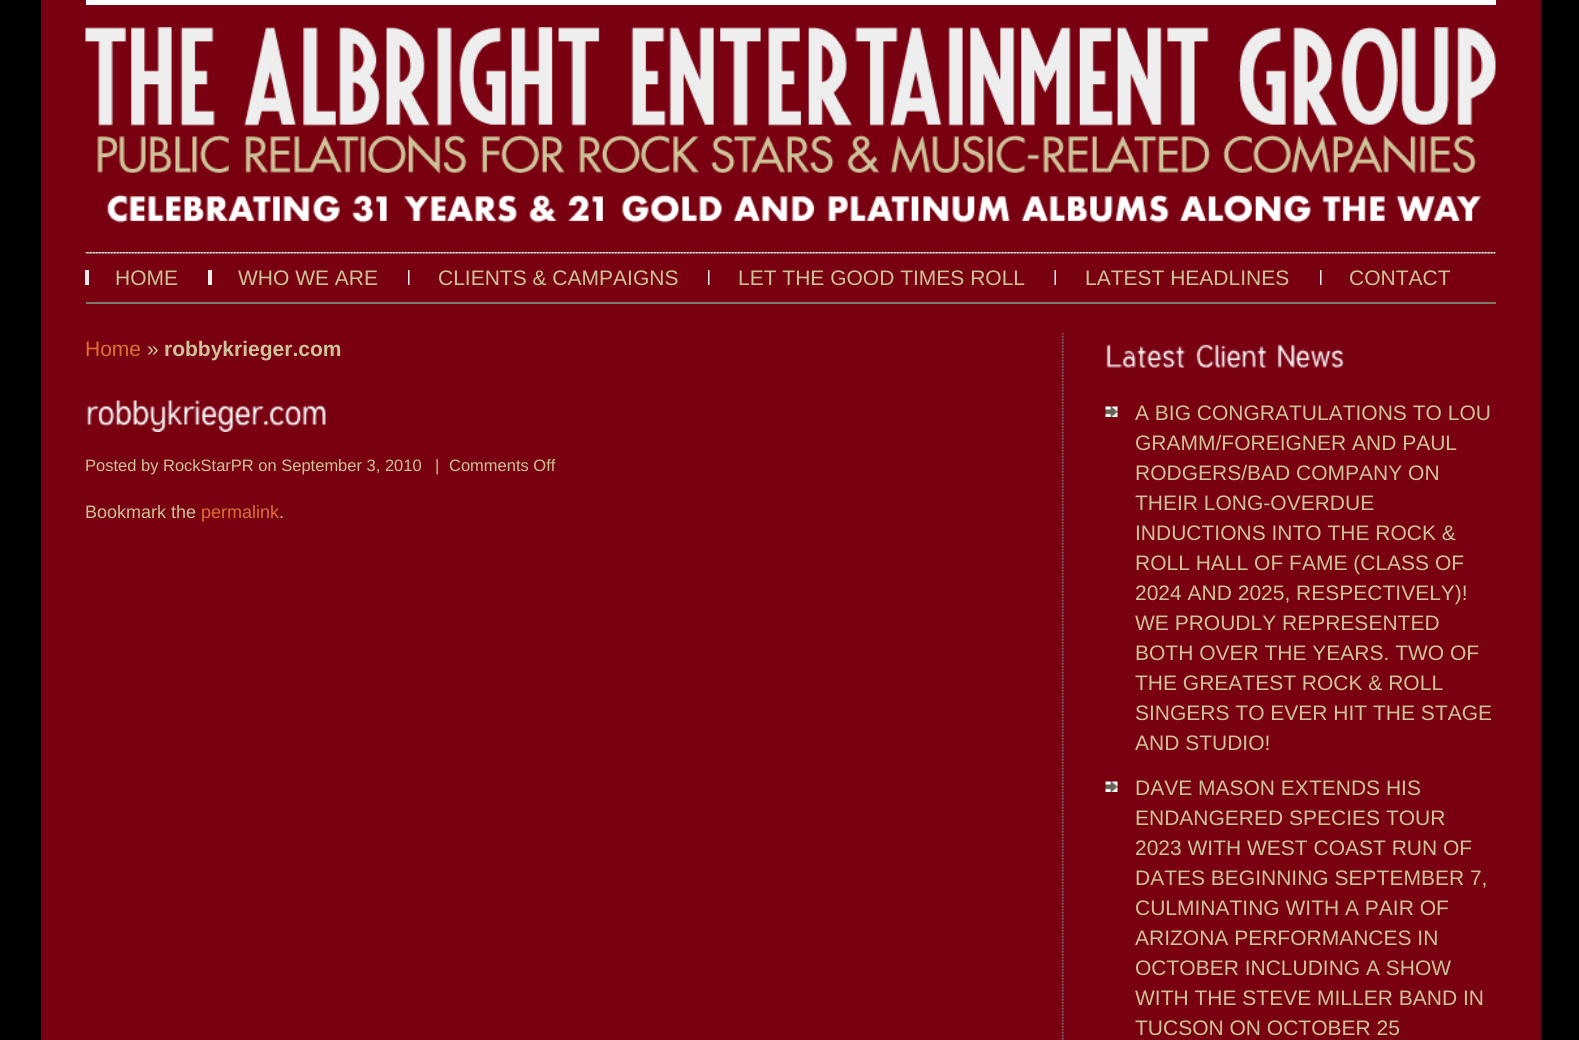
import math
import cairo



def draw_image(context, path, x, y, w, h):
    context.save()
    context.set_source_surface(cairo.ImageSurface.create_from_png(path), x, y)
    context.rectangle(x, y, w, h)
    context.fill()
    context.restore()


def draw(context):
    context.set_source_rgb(0, 0, 0)
    context.paint()
    context.set_source_rgb(120 / 255, 0, 16 / 255)
    context.rectangle(41, 0, 1500, 1040)
    context.fill()
    context.set_source_rgb(1, 1, 1)
    context.rectangle(86, 0, 1410, 5)
    context.fill()
    draw_image(context, "images/1.png", 85, 27, 1411, 196)
    draw_image(context, "images/2.png", 85, 252, 1411, 2)
    context.set_source_rgb(124 / 255, 122 / 255, 107 / 255)
    context.rectangle(86, 302, 1410, 2)
    context.fill()
    context.set_source_rgb(235 / 255, 236 / 255, 235 / 255)
    context.rectangle(85, 270, 4, 15)
    context.fill()
    context.rectangle(208, 270, 4, 15)
    context.fill()
    draw_image(context, "images/3.png", 408, 270, 2, 15)
    draw_image(context, "images/3.png", 708, 270, 2, 15)
    draw_image(context, "images/4.png", 1054, 270, 2, 15)
    draw_image(context, "images/3.png", 1320, 270, 2, 15)
    draw_image(context, "images/5.png", 1061, 333, 3, 707)
    draw_image(context, "images/6.png", 86, 400, 240, 32)
    draw_image(context, "images/7.png", 1106, 344, 80, 24)
    draw_image(context, "images/8.png", 1196, 344, 71, 24)
    draw_image(context, "images/9.png", 1277, 344, 68, 24)
    draw_image(context, "images/10.png", 1105, 406, 13, 11)
    draw_image(context, "images/10.png", 1105, 781, 13, 11)
    context.select_font_face("Liberation Sans")
    context.set_font_size(21)
    context.set_source_rgb(206 / 255, 195 / 255, 152 / 255)
    context.move_to(115, 285)
    context.show_text("HOME")
    context.move_to(238, 285)
    context.show_text("WHO WE ARE")
    context.move_to(438, 285)
    context.show_text("CLIENTS & CAMPAIGNS")
    context.move_to(738, 285)
    context.show_text("LET THE GOOD TIMES ROLL")
    context.move_to(1085, 285)
    context.show_text("LATEST HEADLINES")
    context.move_to(1349, 285)
    context.show_text("CONTACT")
    context.set_source_rgb(223 / 255, 112 / 255, 52 / 255)
    context.move_to(85, 356)
    context.show_text("Home")
    context.set_source_rgb(206 / 255, 195 / 255, 152 / 255)
    context.move_to(147, 356)
    context.show_text("»")
    context.select_font_face("Liberation Sans", cairo.FontSlant.NORMAL, cairo.FontWeight.BOLD)
    context.move_to(164, 356)
    context.show_text("robbykrieger.com")
    context.select_font_face("Liberation Sans")
    context.set_font_size(16.5)
    context.move_to(85, 471)
    context.show_text("Posted by RockStarPR on September 3, 2010")
    context.move_to(435, 471)
    context.show_text("|")
    context.move_to(449, 471)
    context.show_text("Comments Off")
    context.set_font_size(18)
    context.move_to(85, 518)
    context.show_text("Bookmark the")
    context.set_source_rgb(223 / 255, 112 / 255, 52 / 255)
    context.move_to(201, 518)
    context.show_text("permalink")
    context.set_source_rgb(206 / 255, 195 / 255, 152 / 255)
    context.move_to(279, 518)
    context.show_text(".")
    context.set_font_size(21)
    context.move_to(1135, 420)
    context.show_text("A BIG CONGRATULATIONS TO LOU")
    context.move_to(1135, 450)
    context.show_text("GRAMM/FOREIGNER AND PAUL")
    context.move_to(1135, 480)
    context.show_text("RODGERS/BAD COMPANY ON")
    context.move_to(1135, 510)
    context.show_text("THEIR LONG-OVERDUE")
    context.move_to(1135, 540)
    context.show_text("INDUCTIONS INTO THE ROCK &")
    context.move_to(1135, 570)
    context.show_text("ROLL HALL OF FAME (CLASS OF")
    context.move_to(1135, 600)
    context.show_text("2024 AND 2025, RESPECTIVELY)!")
    context.move_to(1135, 630)
    context.show_text("WE PROUDLY REPRESENTED")
    context.move_to(1135, 660)
    context.show_text("BOTH OVER THE YEARS. TWO OF")
    context.move_to(1135, 690)
    context.show_text("THE GREATEST ROCK & ROLL")
    context.move_to(1135, 720)
    context.show_text("SINGERS TO EVER HIT THE STAGE")
    context.move_to(1135, 750)
    context.show_text("AND STUDIO!")
    context.move_to(1135, 795)
    context.show_text("DAVE MASON EXTENDS HIS")
    context.move_to(1135, 825)
    context.show_text("ENDANGERED SPECIES TOUR")
    context.move_to(1135, 855)
    context.show_text("2023 WITH WEST COAST RUN OF")
    context.move_to(1135, 885)
    context.show_text("DATES BEGINNING SEPTEMBER 7,")
    context.move_to(1135, 915)
    context.show_text("CULMINATING WITH A PAIR OF")
    context.move_to(1135, 945)
    context.show_text("ARIZONA PERFORMANCES IN")
    context.move_to(1135, 975)
    context.show_text("OCTOBER INCLUDING A SHOW")
    context.move_to(1135, 1005)
    context.show_text("WITH THE STEVE MILLER BAND IN")
    context.move_to(1135, 1035)
    context.show_text("TUCSON ON OCTOBER 25")


surface = cairo.ImageSurface(cairo.Format.RGB24, 1579, 1040)
context = cairo.Context(surface)
options = cairo.FontOptions()
options.set_hint_metrics(cairo.HintMetrics.OFF)
options.set_hint_style(cairo.HintStyle.NONE)
context.set_font_options(options)
context.set_miter_limit(4)
draw(context)
surface.write_to_png("out.png")
